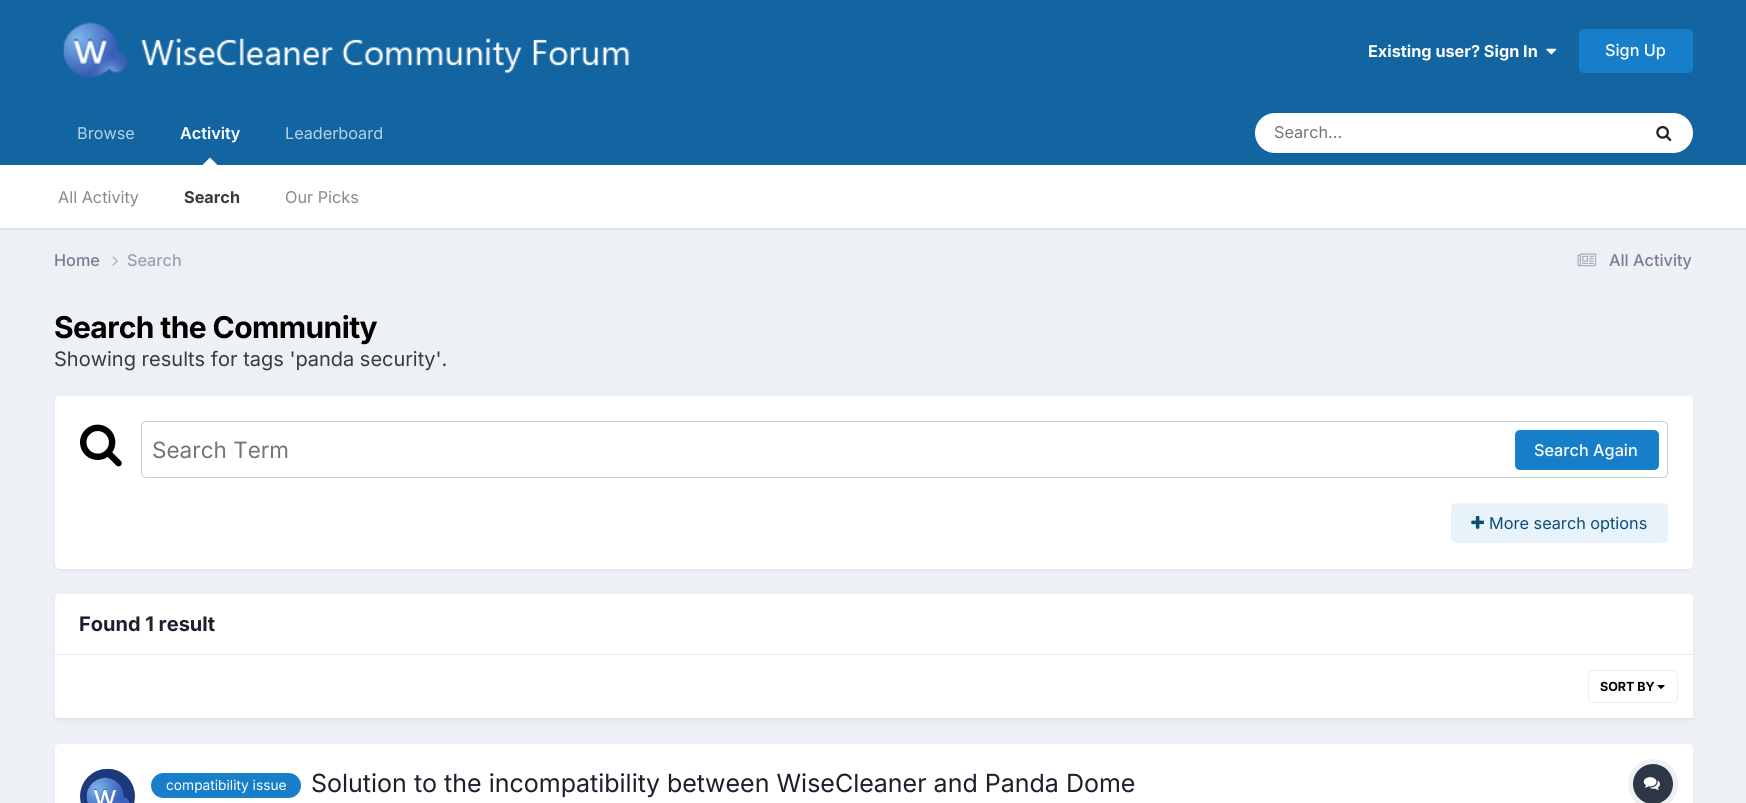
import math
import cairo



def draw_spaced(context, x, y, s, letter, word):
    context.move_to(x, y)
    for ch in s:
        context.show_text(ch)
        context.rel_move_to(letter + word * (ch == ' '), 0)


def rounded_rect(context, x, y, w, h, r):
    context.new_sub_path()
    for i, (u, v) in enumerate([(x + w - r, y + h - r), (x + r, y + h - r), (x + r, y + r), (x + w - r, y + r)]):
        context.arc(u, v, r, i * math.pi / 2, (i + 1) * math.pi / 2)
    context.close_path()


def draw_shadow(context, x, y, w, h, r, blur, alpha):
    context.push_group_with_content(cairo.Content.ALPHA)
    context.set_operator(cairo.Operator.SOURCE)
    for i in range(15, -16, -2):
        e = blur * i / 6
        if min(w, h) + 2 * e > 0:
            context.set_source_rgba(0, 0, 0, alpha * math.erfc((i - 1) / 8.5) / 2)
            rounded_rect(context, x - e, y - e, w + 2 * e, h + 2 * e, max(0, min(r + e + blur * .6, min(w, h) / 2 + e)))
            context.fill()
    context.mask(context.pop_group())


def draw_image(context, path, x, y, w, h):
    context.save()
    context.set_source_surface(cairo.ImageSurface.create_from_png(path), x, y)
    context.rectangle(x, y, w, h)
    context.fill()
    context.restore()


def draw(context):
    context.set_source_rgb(237 / 255, 240 / 255, 244 / 255)
    context.paint()
    context.set_source_rgb(18 / 255, 101 / 255, 161 / 255)
    context.rectangle(0, 0, 1746, 165)
    context.fill()
    draw_image(context, "images/1.png", 63, 22, 566, 56)
    draw_image(context, "images/2.png", 1546, 48, 11, 7)
    context.set_source_rgb(23 / 255, 126 / 255, 201 / 255)
    rounded_rect(context, 1579, 29, 114, 44, 5)
    context.fill()
    context.set_source_rgb(0, 0, 0)
    draw_shadow(context, 0, 166, 1746, 63, 0, 1, 0.1)
    context.set_source_rgb(1, 1, 1)
    context.new_path()
    context.move_to(217.5, 165)
    context.line_to(202.5, 165)
    context.line_to(210, 157.5)
    context.close_path()
    context.fill()
    rounded_rect(context, 1255, 113, 438, 40, 20)
    context.fill()
    draw_image(context, "images/3.png", 1656, 126, 16, 16)
    context.rectangle(0, 165, 1746, 63)
    context.fill()
    draw_image(context, "images/4.png", 112, 256, 6, 10)
    draw_image(context, "images/5.png", 1577, 253, 20, 14)
    context.set_source_rgb(45 / 255, 55 / 255, 72 / 255)
    draw_shadow(context, 56, 400, 1635, 170, 4, 2.5, 0.1)
    context.set_source_rgb(1, 1, 1)
    rounded_rect(context, 55, 396, 1638, 173, 5)
    context.fill()
    draw_image(context, "images/6.png", 80, 424, 42, 43)
    rounded_rect(context, 141.5, 421.5, 1526, 56, 4.5)
    context.set_source_rgb(198 / 255, 204 / 255, 213 / 255)
    context.set_line_width(1)
    context.stroke()
    context.set_source_rgb(23 / 255, 126 / 255, 201 / 255)
    rounded_rect(context, 1515, 430, 144, 40, 5)
    context.fill()
    context.set_source_rgb(232 / 255, 242 / 255, 250 / 255)
    rounded_rect(context, 1451, 503, 217, 40, 5)
    context.fill()
    draw_image(context, "images/7.png", 1471, 516, 13, 13)
    context.set_source_rgb(45 / 255, 55 / 255, 72 / 255)
    draw_shadow(context, 56, 598, 1635, 122, 4, 2.5, 0.1)
    context.set_source_rgb(1, 1, 1)
    context.new_path()
    context.move_to(60, 594)
    context.line_to(1688, 594)
    context.curve_to(1691, 594, 1693, 596, 1693, 599)
    context.line_to(1693, 655)
    context.line_to(55, 655)
    context.line_to(55, 599)
    context.curve_to(55, 596, 57, 594, 60, 594)
    context.close_path()
    context.fill()
    context.set_source_rgb(234 / 255, 236 / 255, 239 / 255)
    context.rectangle(55, 654, 1638, 1)
    context.fill()
    context.set_source_rgb(1, 1, 1)
    context.rectangle(55, 655, 1638, 63)
    context.fill()
    context.set_source_rgb(225 / 255, 226 / 255, 227 / 255)
    context.rectangle(55, 718, 1638, 1)
    context.fill()
    draw_image(context, "images/8.png", 1657, 685, 8, 4)
    rounded_rect(context, 1588.5, 670.5, 89, 32, 4.5)
    context.set_source_rgb(235 / 255, 236 / 255, 236 / 255)
    context.stroke()
    context.set_source_rgb(45 / 255, 55 / 255, 72 / 255)
    draw_shadow(context, 56, 748, 1635, 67, 4, 2.5, 0.1)
    context.set_source_rgb(1, 1, 1)
    rounded_rect(context, 55, 744, 1638, 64, 5)
    context.fill()
    draw_image(context, "images/9.png", 80, 768, 55, 35)
    context.set_source_rgb(23 / 255, 126 / 255, 201 / 255)
    rounded_rect(context, 151, 773, 150, 25, 12.5)
    context.fill()
    context.arc(1653, 784, 22.5, 0, 2 * math.pi)
    context.set_source_rgb(237 / 255, 240 / 255, 244 / 255)
    context.set_line_width(5)
    context.stroke()
    context.set_source_rgb(45 / 255, 55 / 255, 72 / 255)
    context.arc(1653, 784, 20, 0, 2 * math.pi)
    context.fill()
    draw_image(context, "images/10.png", 1643, 777, 17, 13)
    context.select_font_face("Inter", cairo.FontSlant.NORMAL, cairo.FontWeight.BOLD)
    context.set_font_size(16.25)
    context.set_source_rgb(1, 1, 1)
    context.move_to(1368, 57)
    context.show_text("Existing user? Sign In")
    context.select_font_face("Inter Medium")
    context.move_to(1605, 56)
    context.show_text("Sign Up")
    context.select_font_face("Inter SemiBold")
    context.move_to(180, 139)
    context.show_text("Activity")
    context.select_font_face("Inter")
    context.set_source_rgb(134 / 255, 138 / 255, 141 / 255)
    context.move_to(58, 203)
    context.show_text("All Activity")
    context.select_font_face("Inter", cairo.FontSlant.NORMAL, cairo.FontWeight.BOLD)
    context.set_source_rgb(53 / 255, 60 / 255, 65 / 255)
    context.move_to(184, 203)
    context.show_text("Search")
    context.select_font_face("Inter")
    context.set_source_rgb(134 / 255, 138 / 255, 141 / 255)
    context.move_to(285, 203)
    context.show_text("Our Picks")
    context.set_source_rgb(184 / 255, 209 / 255, 227 / 255)
    context.move_to(77, 139)
    context.show_text("Browse")
    context.move_to(285, 139)
    context.show_text("Leaderboard")
    context.set_source_rgb(117 / 255, 117 / 255, 117 / 255)
    context.move_to(1274, 138)
    context.show_text("Search...")
    context.select_font_face("Inter Medium")
    context.set_source_rgb(113 / 255, 128 / 255, 150 / 255)
    context.move_to(54, 266)
    context.show_text("Home")
    context.set_source_rgb(150 / 255, 162 / 255, 178 / 255)
    context.move_to(127, 266)
    context.show_text("Search")
    context.set_source_rgb(113 / 255, 128 / 255, 150 / 255)
    context.move_to(1609, 266)
    context.show_text("All Activity")
    context.select_font_face("Inter", cairo.FontSlant.NORMAL, cairo.FontWeight.BOLD)
    context.set_font_size(30)
    context.set_source_rgb(0, 0, 0)
    draw_spaced(context, 54, 338, "Search the Community", -0.6, 0)
    context.select_font_face("Inter")
    context.set_font_size(20)
    context.set_source_rgb(53 / 255, 60 / 255, 65 / 255)
    context.move_to(54, 366)
    context.show_text("Showing results for tags 'panda security'.")
    context.set_font_size(22.5)
    context.set_source_rgb(117 / 255, 117 / 255, 117 / 255)
    context.move_to(152, 458)
    context.show_text("Search Term")
    context.select_font_face("Inter Medium")
    context.set_font_size(16.25)
    context.set_source_rgb(1, 1, 1)
    context.move_to(1534, 456)
    context.show_text("Search Again")
    context.select_font_face("Inter")
    context.set_source_rgb(14 / 255, 76 / 255, 121 / 255)
    context.move_to(1489, 529)
    context.show_text("More search options")
    context.select_font_face("Inter", cairo.FontSlant.NORMAL, cairo.FontWeight.BOLD)
    context.set_font_size(20)
    context.set_source_rgb(26 / 255, 32 / 255, 44 / 255)
    context.move_to(79, 631)
    context.show_text("Found 1 result")
    context.set_font_size(12.5)
    context.set_source_rgb(0, 0, 0)
    context.move_to(1600, 691)
    context.show_text("SORT BY")
    context.select_font_face("Inter")
    context.set_font_size(13.75)
    context.set_source_rgb(1, 1, 1)
    context.move_to(166, 790)
    context.show_text("compatibility issue")
    context.set_font_size(25)
    context.set_source_rgb(26 / 255, 32 / 255, 44 / 255)
    context.move_to(311, 792)
    context.show_text("Solution to the incompatibility between WiseCleaner and Panda Dome")


surface = cairo.ImageSurface(cairo.Format.RGB24, 1746, 803)
context = cairo.Context(surface)
options = cairo.FontOptions()
options.set_hint_metrics(cairo.HintMetrics.OFF)
options.set_hint_style(cairo.HintStyle.NONE)
context.set_font_options(options)
context.set_miter_limit(4)
draw(context)
surface.write_to_png("out.png")
